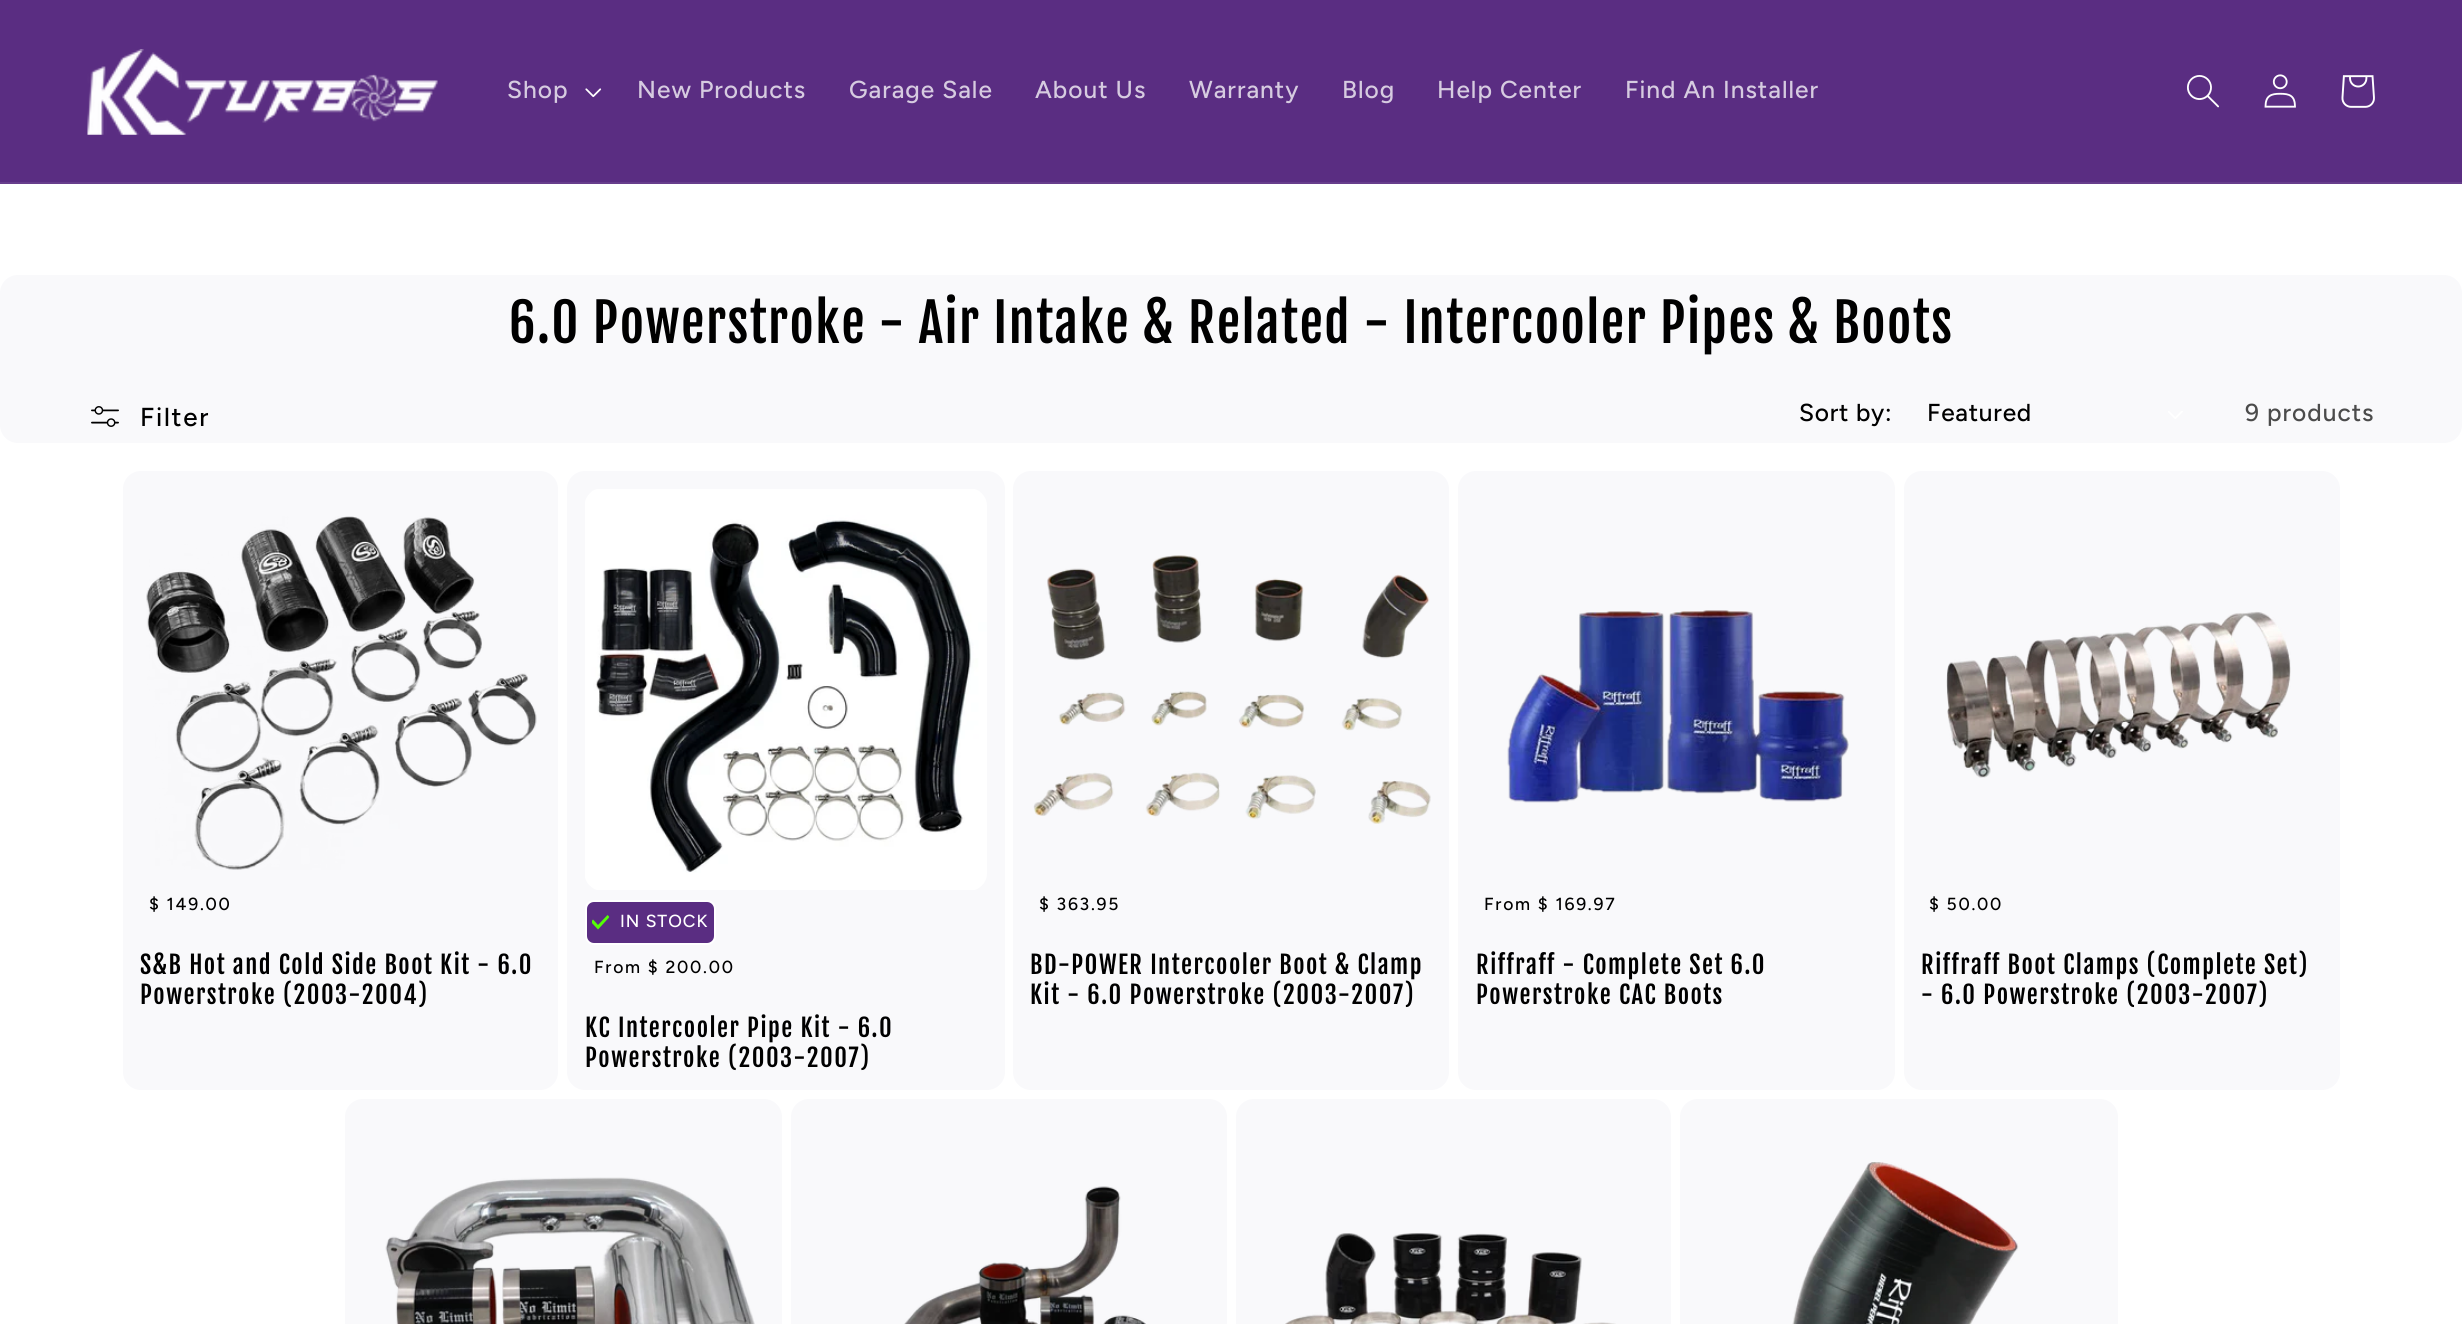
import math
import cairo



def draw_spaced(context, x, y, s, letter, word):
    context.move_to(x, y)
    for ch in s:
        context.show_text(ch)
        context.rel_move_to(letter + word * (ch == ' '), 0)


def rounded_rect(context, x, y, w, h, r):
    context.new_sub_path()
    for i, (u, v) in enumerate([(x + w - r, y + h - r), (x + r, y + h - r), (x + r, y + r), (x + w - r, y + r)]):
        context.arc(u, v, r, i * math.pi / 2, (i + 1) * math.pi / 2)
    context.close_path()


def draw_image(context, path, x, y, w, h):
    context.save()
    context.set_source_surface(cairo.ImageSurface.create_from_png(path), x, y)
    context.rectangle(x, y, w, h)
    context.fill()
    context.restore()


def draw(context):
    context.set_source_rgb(1, 1, 1)
    context.paint()
    context.set_source_rgb(90 / 255, 45 / 255, 130 / 255)
    context.rectangle(0, 0, 2462, 182)
    context.fill()
    context.set_source_rgb(103 / 255, 62 / 255, 140 / 255)
    context.rectangle(0, 182, 2462, 2)
    context.fill()
    draw_image(context, "images/1.png", 87, 49, 351, 86)
    draw_image(context, "images/2.png", 585, 88, 17, 10)
    draw_image(context, "images/3.png", 2187, 75, 32, 33)
    draw_image(context, "images/4.png", 2264, 74, 32, 34)
    draw_image(context, "images/5.png", 2341, 75, 34, 33)
    context.set_source_rgb(249 / 255, 249 / 255, 251 / 255)
    rounded_rect(context, 0, 275, 2462, 168, 18)
    context.fill()
    draw_image(context, "images/6.png", 91, 406, 28, 21)
    draw_image(context, "images/7.png", 2168, 411, 15, 8)
    rounded_rect(context, 123, 471, 435, 619, 18)
    context.fill()
    draw_image(context, "images/8.png", 146, 516, 391, 354)
    rounded_rect(context, 567, 471, 438, 619, 18)
    context.fill()
    draw_image(context, "images/9.png", 585, 489, 402, 401)
    context.set_source_rgb(90 / 255, 45 / 255, 130 / 255)
    rounded_rect(context, 586, 901, 129, 43, 8)
    context.fill_preserve()
    context.set_source_rgb(1, 1, 1)
    context.stroke()
    context.save()
    context.rectangle(592, 914, 17, 17)
    context.clip()
    context.set_source_rgb(84 / 255, 1, 4 / 255)
    context.new_path()
    context.move_to(598, 929.5)
    context.line_to(591, 922)
    context.line_to(593, 919.5)
    context.line_to(598, 925)
    context.line_to(607.5, 915)
    context.line_to(609.5, 917)
    context.close_path()
    context.fill()
    context.restore()
    context.set_source_rgb(249 / 255, 249 / 255, 251 / 255)
    rounded_rect(context, 1013, 471, 436, 619, 18)
    context.fill()
    draw_image(context, "images/10.png", 1033, 555, 398, 269)
    rounded_rect(context, 1458, 471, 437, 619, 18)
    context.fill()
    draw_image(context, "images/11.png", 1507, 610, 342, 193)
    rounded_rect(context, 1904, 471, 436, 619, 18)
    context.fill()
    draw_image(context, "images/12.png", 1946, 611, 345, 167)
    rounded_rect(context, 345, 1099, 437, 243, 18)
    context.fill()
    draw_image(context, "images/13.png", 385, 1177, 370, 147)
    rounded_rect(context, 791, 1099, 436, 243, 18)
    context.fill()
    draw_image(context, "images/14.png", 904, 1186, 242, 138)
    rounded_rect(context, 1236, 1099, 435, 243, 18)
    context.fill()
    draw_image(context, "images/15.png", 1285, 1233, 331, 91)
    rounded_rect(context, 1680, 1099, 438, 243, 18)
    context.fill()
    draw_image(context, "images/16.png", 1792, 1162, 227, 162)
    context.select_font_face("Figtree Medium")
    context.set_font_size(24.5)
    context.set_source_rgb(214 / 255, 203 / 255, 224 / 255)
    draw_spaced(context, 507, 98, "Shop", 1, 0)
    draw_spaced(context, 637, 98, "New Products", 1, 0)
    draw_spaced(context, 849, 98, "Garage Sale", 1, 0)
    draw_spaced(context, 1035, 98, "About Us", 1, 0)
    draw_spaced(context, 1189, 98, "Warranty", 1, 0)
    draw_spaced(context, 1342, 98, "Blog", 1, 0)
    draw_spaced(context, 1437, 98, "Help Center", 1, 0)
    draw_spaced(context, 1625, 98, "Find An Installer", 1, 0)
    context.select_font_face("Fjalla One")
    context.set_font_size(52.5)
    context.set_source_rgb(0, 0, 0)
    draw_spaced(context, 509, 343, "6.0 Powerstroke - Air Intake & Related - Intercooler Pipes & Boots", 1.47, 0)
    context.select_font_face("Figtree Medium")
    context.set_font_size(26)
    draw_spaced(context, 140, 426, "Filter", 1.75, 0)
    context.set_font_size(24.5)
    draw_spaced(context, 1799, 421, "Sort by:", 0.75, 0)
    draw_spaced(context, 1927, 421, "Featured", 0.75, 0)
    context.set_source_rgb(75 / 255, 75 / 255, 75 / 255)
    draw_spaced(context, 2245, 421, "9 products", 1, 0)
    context.set_font_size(17.5)
    context.set_source_rgb(0, 0, 0)
    draw_spaced(context, 149, 910, "$ 149.00", 1.75, 0)
    context.select_font_face("Fjalla One")
    context.set_font_size(24.5)
    draw_spaced(context, 140, 974, "S&B Hot and Cold Side Boot Kit - 6.0", 1.47, 0)
    draw_spaced(context, 140, 1004, "Powerstroke (2003-2004)", 1.47, 0)
    context.select_font_face("Figtree Medium")
    context.set_font_size(17.5)
    context.set_source_rgb(1, 1, 1)
    draw_spaced(context, 620, 927, "IN STOCK", 1, 0)
    context.set_source_rgb(0, 0, 0)
    draw_spaced(context, 594, 973, "From $ 200.00", 1.75, 0)
    context.select_font_face("Fjalla One")
    context.set_font_size(24.5)
    draw_spaced(context, 585, 1037, "KC Intercooler Pipe Kit - 6.0", 1.47, 0)
    draw_spaced(context, 585, 1067, "Powerstroke (2003-2007)", 1.47, 0)
    context.select_font_face("Figtree Medium")
    context.set_font_size(17.5)
    draw_spaced(context, 1039, 910, "$ 363.95", 1.75, 0)
    context.select_font_face("Fjalla One")
    context.set_font_size(24.5)
    draw_spaced(context, 1030, 974, "BD-POWER Intercooler Boot & Clamp", 1.47, 0)
    draw_spaced(context, 1030, 1004, "Kit - 6.0 Powerstroke (2003-2007)", 1.47, 0)
    context.select_font_face("Figtree Medium")
    context.set_font_size(17.5)
    draw_spaced(context, 1484, 910, "From $ 169.97", 1.75, 0)
    context.select_font_face("Fjalla One")
    context.set_font_size(24.5)
    draw_spaced(context, 1476, 974, "Riffraff - Complete Set 6.0", 1.47, 0)
    draw_spaced(context, 1476, 1004, "Powerstroke CAC Boots", 1.47, 0)
    context.select_font_face("Figtree Medium")
    context.set_font_size(17.5)
    draw_spaced(context, 1929, 910, "$ 50.00", 1.75, 0)
    context.select_font_face("Fjalla One")
    context.set_font_size(24.5)
    draw_spaced(context, 1921, 974, "Riffraff Boot Clamps (Complete Set)", 1.47, 0)
    draw_spaced(context, 1921, 1004, "- 6.0 Powerstroke (2003-2007)", 1.47, 0)


surface = cairo.ImageSurface(cairo.Format.RGB24, 2462, 1324)
context = cairo.Context(surface)
options = cairo.FontOptions()
options.set_hint_metrics(cairo.HintMetrics.OFF)
options.set_hint_style(cairo.HintStyle.NONE)
context.set_font_options(options)
context.set_miter_limit(4)
draw(context)
surface.write_to_png("out.png")
